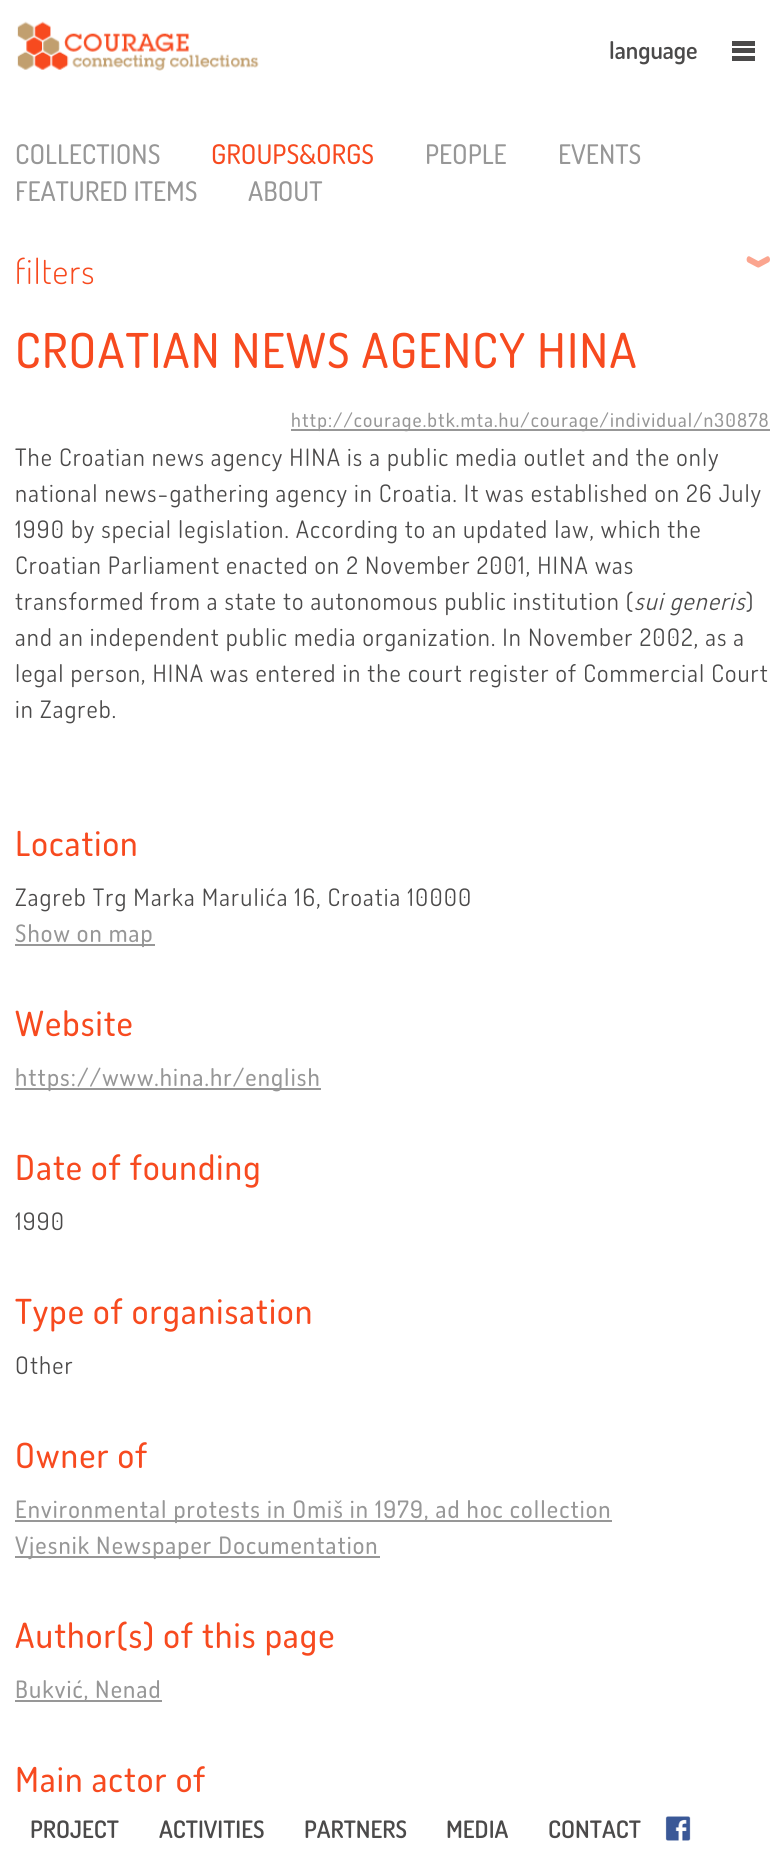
import math
import cairo



def draw_spaced(context, x, y, s, letter, word):
    context.move_to(x, y)
    for ch in s:
        context.show_text(ch)
        context.rel_move_to(letter + word * (ch == ' '), 0)


def draw_image(context, path, x, y, w, h):
    context.save()
    context.set_source_surface(cairo.ImageSurface.create_from_png(path), x, y)
    context.rectangle(x, y, w, h)
    context.fill()
    context.restore()


def draw(context):
    context.set_source_rgb(1, 1, 1)
    context.paint()
    draw_image(context, "images/1.png", 17, 21, 242, 50)
    context.set_source_rgb(75 / 255, 74 / 255, 74 / 255)
    context.rectangle(732, 41, 23, 5)
    context.fill()
    context.rectangle(732, 56, 23, 5)
    context.fill()
    context.rectangle(732, 48, 23, 5)
    context.fill()
    context.set_source_rgb(151 / 255, 151 / 255, 151 / 255)
    context.rectangle(291, 429, 479, 2)
    context.fill()
    context.rectangle(15, 944, 140, 2)
    context.fill()
    context.rectangle(15, 1088, 306, 2)
    context.fill()
    context.rectangle(15, 1520, 597, 2)
    context.fill()
    context.rectangle(15, 1556, 365, 2)
    context.fill()
    context.rectangle(15, 1700, 147, 2)
    context.fill()
    draw_image(context, "images/2.png", 665, 1816, 26, 25)
    context.select_font_face("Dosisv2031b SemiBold")
    context.set_font_size(24)
    context.set_source_rgb(75 / 255, 74 / 255, 74 / 255)
    context.move_to(609, 59)
    context.show_text("language")
    context.select_font_face("Dosisv2031b Medium")
    context.set_font_size(27)
    context.set_source_rgb(151 / 255, 151 / 255, 151 / 255)
    context.move_to(15, 164)
    context.show_text("COLLECTIONS")
    context.set_source_rgb(247 / 255, 74 / 255, 31 / 255)
    context.move_to(211, 164)
    context.show_text("GROUPS&ORGS")
    context.set_source_rgb(151 / 255, 151 / 255, 151 / 255)
    context.move_to(425, 164)
    context.show_text("PEOPLE")
    context.move_to(558, 164)
    context.show_text("EVENTS")
    context.move_to(15, 201)
    context.show_text("FEATURED ITEMS")
    context.move_to(248, 201)
    context.show_text("ABOUT")
    context.select_font_face("Dosis Light")
    context.set_font_size(34.5)
    context.set_source_rgb(247 / 255, 74 / 255, 31 / 255)
    draw_spaced(context, 15, 284, "filters", 1.12, 0)
    context.select_font_face("Dosis", cairo.FontSlant.NORMAL, cairo.FontWeight.BOLD)
    context.set_font_size(82)
    context.set_source_rgb(251 / 255, 165 / 255, 143 / 255)
    context.save()
    context.translate(770, 209)
    context.rotate(180 * math.pi / 180)
    draw_spaced(context, 0, 0, "ˆ", 1.12, 0)
    context.restore()
    context.select_font_face("Dosisv2031b Medium")
    context.set_font_size(48)
    context.set_source_rgb(247 / 255, 74 / 255, 31 / 255)
    draw_spaced(context, 15, 368, "CROATIAN NEWS AGENCY HINA", 1.12, 0)
    context.set_font_size(19.2)
    context.set_source_rgb(151 / 255, 151 / 255, 151 / 255)
    draw_spaced(context, 291, 427, "http://courage.btk.mta.hu/courage/individual/n30878", 1.12, 0)
    context.select_font_face("Dosisv2031b")
    context.set_font_size(24)
    context.set_source_rgb(75 / 255, 74 / 255, 74 / 255)
    draw_spaced(context, 15, 466, "The Croatian news agency HINA is a public media outlet and the only", 1.12, 0)
    draw_spaced(context, 15, 502, "national news-gathering agency in Croatia. It was established on 26 July", 1.12, 0)
    draw_spaced(context, 15, 538, "1990 by special legislation. According to an updated law, which the", 1.12, 0)
    draw_spaced(context, 15, 574, "Croatian Parliament enacted on 2 November 2001, HINA was", 1.12, 0)
    draw_spaced(context, 15, 610, "transformed from a state to autonomous public institution (", 1.12, 0)
    context.select_font_face("Dosisv2031b", cairo.FontSlant.ITALIC)
    draw_spaced(context, 634, 610, "sui generis", 1.12, 0)
    context.select_font_face("Dosisv2031b")
    draw_spaced(context, 746, 610, ")", 1.12, 0)
    draw_spaced(context, 15, 646, "and an independent public media organization. In November 2002, as a", 1.12, 0)
    draw_spaced(context, 15, 682, "legal person, HINA was entered in the court register of Commercial Court", 1.12, 0)
    draw_spaced(context, 15, 718, "in Zagreb.", 1.12, 0)
    context.select_font_face("Dosisv2031b Medium")
    context.set_font_size(34.5)
    context.set_source_rgb(247 / 255, 74 / 255, 31 / 255)
    draw_spaced(context, 15, 856, "Location", 1.12, 0)
    context.select_font_face("Dosisv2031b")
    context.set_font_size(24)
    context.set_source_rgb(75 / 255, 74 / 255, 74 / 255)
    draw_spaced(context, 15, 906, "Zagreb Trg Marka Marulića 16, Croatia 10000", 1.12, 0)
    context.select_font_face("Dosisv2031b Medium")
    context.set_source_rgb(151 / 255, 151 / 255, 151 / 255)
    draw_spaced(context, 15, 942, "Show on map", 1.12, 0)
    context.set_font_size(34.5)
    context.set_source_rgb(247 / 255, 74 / 255, 31 / 255)
    draw_spaced(context, 15, 1036, "Website", 1.12, 0)
    context.set_font_size(24)
    context.set_source_rgb(151 / 255, 151 / 255, 151 / 255)
    draw_spaced(context, 15, 1086, "https://www.hina.hr/english", 1.12, 0)
    context.set_font_size(34.5)
    context.set_source_rgb(247 / 255, 74 / 255, 31 / 255)
    draw_spaced(context, 15, 1180, "Date of founding", 1.12, 0)
    context.select_font_face("Dosisv2031b")
    context.set_font_size(24)
    context.set_source_rgb(75 / 255, 74 / 255, 74 / 255)
    draw_spaced(context, 15, 1230, "1990", 1.12, 0)
    context.select_font_face("Dosisv2031b Medium")
    context.set_font_size(34.5)
    context.set_source_rgb(247 / 255, 74 / 255, 31 / 255)
    draw_spaced(context, 15, 1324, "Type of organisation", 1.12, 0)
    context.select_font_face("Dosisv2031b")
    context.set_font_size(24)
    context.set_source_rgb(75 / 255, 74 / 255, 74 / 255)
    draw_spaced(context, 15, 1374, "Other", 1.12, 0)
    context.select_font_face("Dosisv2031b Medium")
    context.set_font_size(34.5)
    context.set_source_rgb(247 / 255, 74 / 255, 31 / 255)
    draw_spaced(context, 15, 1468, "Owner of", 1.12, 0)
    context.set_font_size(24)
    context.set_source_rgb(151 / 255, 151 / 255, 151 / 255)
    draw_spaced(context, 15, 1518, "Environmental protests in Omiš in 1979, ad hoc collection", 1.12, 0)
    draw_spaced(context, 15, 1554, "Vjesnik Newspaper Documentation", 1.12, 0)
    context.set_font_size(34.5)
    context.set_source_rgb(247 / 255, 74 / 255, 31 / 255)
    draw_spaced(context, 15, 1648, "Author(s) of this page", 1.12, 0)
    context.set_font_size(24)
    context.set_source_rgb(151 / 255, 151 / 255, 151 / 255)
    draw_spaced(context, 15, 1698, "Bukvić, Nenad", 1.12, 0)
    context.set_font_size(34.5)
    context.set_source_rgb(247 / 255, 74 / 255, 31 / 255)
    draw_spaced(context, 15, 1792, "Main actor of", 1.12, 0)
    context.select_font_face("Dosisv2031b SemiBold")
    context.set_font_size(24)
    context.set_source_rgb(75 / 255, 74 / 255, 74 / 255)
    context.move_to(30, 1838)
    context.show_text("PROJECT")
    context.move_to(159, 1838)
    context.show_text("ACTIVITIES")
    context.move_to(304, 1838)
    context.show_text("PARTNERS")
    context.move_to(446, 1838)
    context.show_text("MEDIA")
    context.move_to(548, 1838)
    context.show_text("CONTACT")


surface = cairo.ImageSurface(cairo.Format.RGB24, 784, 1867)
context = cairo.Context(surface)
options = cairo.FontOptions()
options.set_hint_metrics(cairo.HintMetrics.OFF)
options.set_hint_style(cairo.HintStyle.NONE)
context.set_font_options(options)
context.set_miter_limit(4)
draw(context)
surface.write_to_png("out.png")
